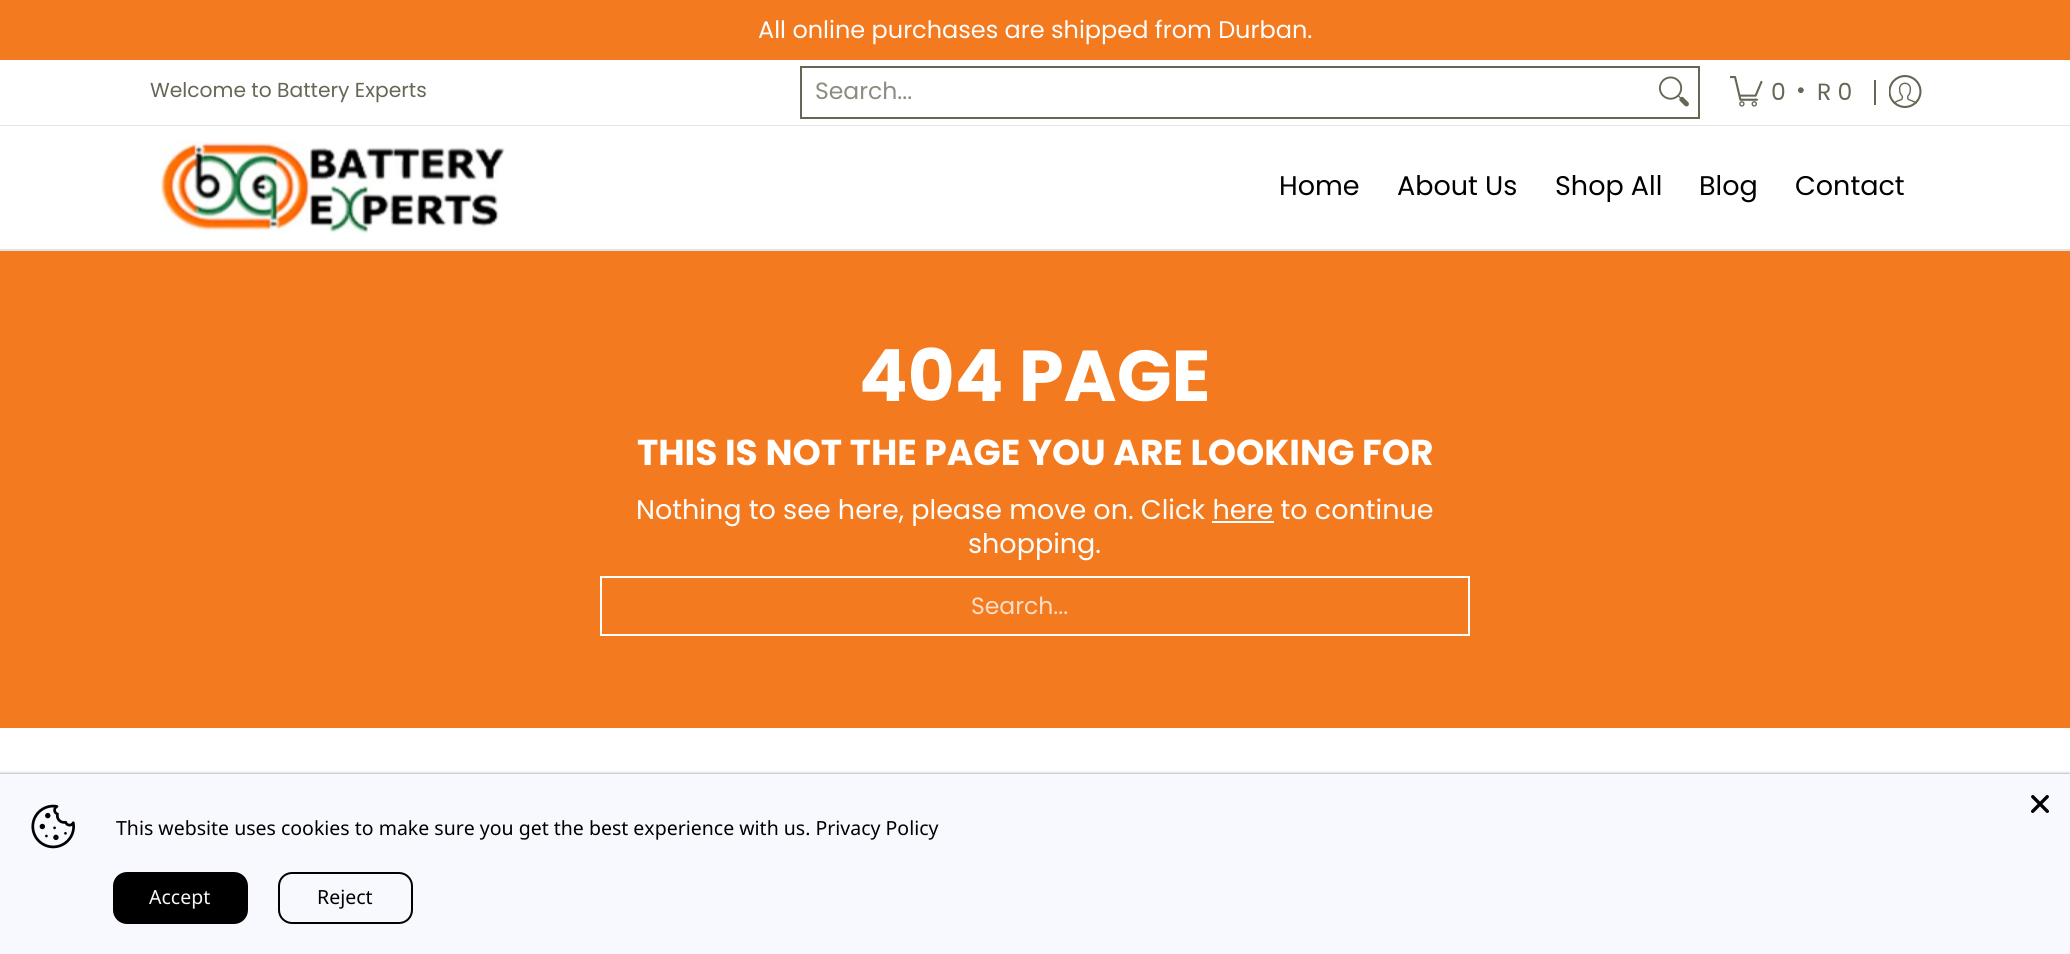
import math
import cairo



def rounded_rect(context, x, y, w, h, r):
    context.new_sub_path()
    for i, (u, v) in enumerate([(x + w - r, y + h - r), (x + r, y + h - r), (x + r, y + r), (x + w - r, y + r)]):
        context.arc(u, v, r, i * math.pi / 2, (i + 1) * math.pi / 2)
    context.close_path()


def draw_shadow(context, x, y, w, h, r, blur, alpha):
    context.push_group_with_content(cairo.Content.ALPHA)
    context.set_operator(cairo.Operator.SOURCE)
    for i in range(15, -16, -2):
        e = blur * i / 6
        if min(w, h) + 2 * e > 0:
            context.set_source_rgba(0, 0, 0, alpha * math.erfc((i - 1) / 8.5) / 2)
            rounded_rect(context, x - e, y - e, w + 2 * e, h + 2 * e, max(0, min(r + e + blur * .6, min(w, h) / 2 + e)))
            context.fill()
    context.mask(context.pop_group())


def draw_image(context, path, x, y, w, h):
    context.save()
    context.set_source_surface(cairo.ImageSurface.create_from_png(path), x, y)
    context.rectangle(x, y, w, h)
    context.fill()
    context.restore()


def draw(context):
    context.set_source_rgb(1, 1, 1)
    context.paint()
    context.set_source_rgb(243 / 255, 122 / 255, 31 / 255)
    context.rectangle(0, 0, 2070, 60)
    context.fill()
    context.set_source_rgb(228 / 255, 228 / 255, 228 / 255)
    context.rectangle(0, 125, 2070, 1)
    context.fill()
    context.rectangle(801, 67, 898, 51)
    context.set_source_rgb(102 / 255, 102 / 255, 85 / 255)
    context.stroke()
    draw_image(context, "images/1.png", 1659, 76, 30, 31)
    draw_image(context, "images/2.png", 1730, 76, 33, 31)
    context.rectangle(1874, 80, 2, 25)
    context.fill()
    draw_image(context, "images/3.png", 1889, 75, 33, 33)
    context.set_source_rgb(228 / 255, 228 / 255, 228 / 255)
    context.rectangle(0, 249, 2070, 2)
    context.fill()
    draw_image(context, "images/4.png", 160, 141, 345, 93)
    context.set_source_rgb(243 / 255, 122 / 255, 31 / 255)
    context.rectangle(0, 251, 2070, 477)
    context.fill()
    context.set_source_rgb(1, 1, 1)
    context.rectangle(1212, 521, 62, 2)
    context.fill()
    context.rectangle(601, 577, 868, 58)
    context.stroke()
    context.set_source_rgb(0, 0, 0)
    draw_shadow(context, 0, 774, 2070, 180, 0, 1.5, 0.5)
    context.set_source_rgb(248 / 255, 248 / 255, 1)
    context.rectangle(0, 774, 2070, 180)
    context.fill()
    draw_image(context, "images/5.png", 2031, 795, 18, 18)
    draw_image(context, "images/6.png", 31, 804, 44, 45)
    context.set_source_rgb(0, 0, 0)
    rounded_rect(context, 113, 872, 135, 52, 14)
    context.fill()
    rounded_rect(context, 279, 873, 133, 50, 13)
    context.stroke()
    context.select_font_face("Poppins")
    context.set_font_size(24)
    context.set_source_rgb(1, 1, 1)
    context.move_to(758, 38)
    context.show_text("All online purchases are shipped from Durban.")
    context.set_font_size(20.25)
    context.set_source_rgb(102 / 255, 102 / 255, 85 / 255)
    context.move_to(150, 97)
    context.show_text("Welcome to Battery Experts")
    context.set_font_size(23.5)
    context.set_source_rgb(140 / 255, 140 / 255, 128 / 255)
    context.move_to(815, 99)
    context.show_text("Search...")
    context.set_source_rgb(102 / 255, 102 / 255, 85 / 255)
    context.move_to(1771, 100)
    context.show_text("0")
    context.move_to(1796, 98)
    context.show_text("•")
    context.move_to(1817, 100)
    context.show_text("R 0")
    context.set_font_size(27)
    context.set_source_rgb(0, 0, 0)
    context.move_to(1279, 195)
    context.show_text("Home")
    context.move_to(1397, 195)
    context.show_text("About Us")
    context.move_to(1555, 195)
    context.show_text("Shop All")
    context.move_to(1699, 195)
    context.show_text("Blog")
    context.move_to(1795, 195)
    context.show_text("Contact")
    context.select_font_face("Poppins", cairo.FontSlant.NORMAL, cairo.FontWeight.BOLD)
    context.set_font_size(72)
    context.set_source_rgb(1, 1, 1)
    context.move_to(859, 401)
    context.show_text("404 PAGE")
    context.set_font_size(36)
    context.move_to(637, 465)
    context.show_text("THIS IS NOT THE PAGE YOU ARE LOOKING FOR")
    context.select_font_face("Poppins")
    context.set_font_size(27)
    context.move_to(636, 519)
    context.show_text("Nothing to see here, please move on. Click here to continue")
    context.move_to(968, 553)
    context.show_text("shopping.")
    context.set_font_size(23.5)
    context.set_source_rgb(252 / 255, 222 / 255, 199 / 255)
    context.move_to(971, 614)
    context.show_text("Search...")
    context.select_font_face("Noto Sans")
    context.set_font_size(19.5)
    context.set_source_rgb(0, 0, 0)
    context.move_to(116, 835)
    context.show_text("This website uses cookies to make sure you get the best experience with us. Privacy Policy")
    context.set_source_rgb(248 / 255, 248 / 255, 248 / 255)
    context.move_to(149, 904)
    context.show_text("Accept")
    context.set_source_rgb(0, 0, 0)
    context.move_to(317, 904)
    context.show_text("Reject")


surface = cairo.ImageSurface(cairo.Format.RGB24, 2070, 954)
context = cairo.Context(surface)
options = cairo.FontOptions()
options.set_hint_metrics(cairo.HintMetrics.OFF)
options.set_hint_style(cairo.HintStyle.NONE)
context.set_font_options(options)
context.set_miter_limit(4)
draw(context)
surface.write_to_png("out.png")
